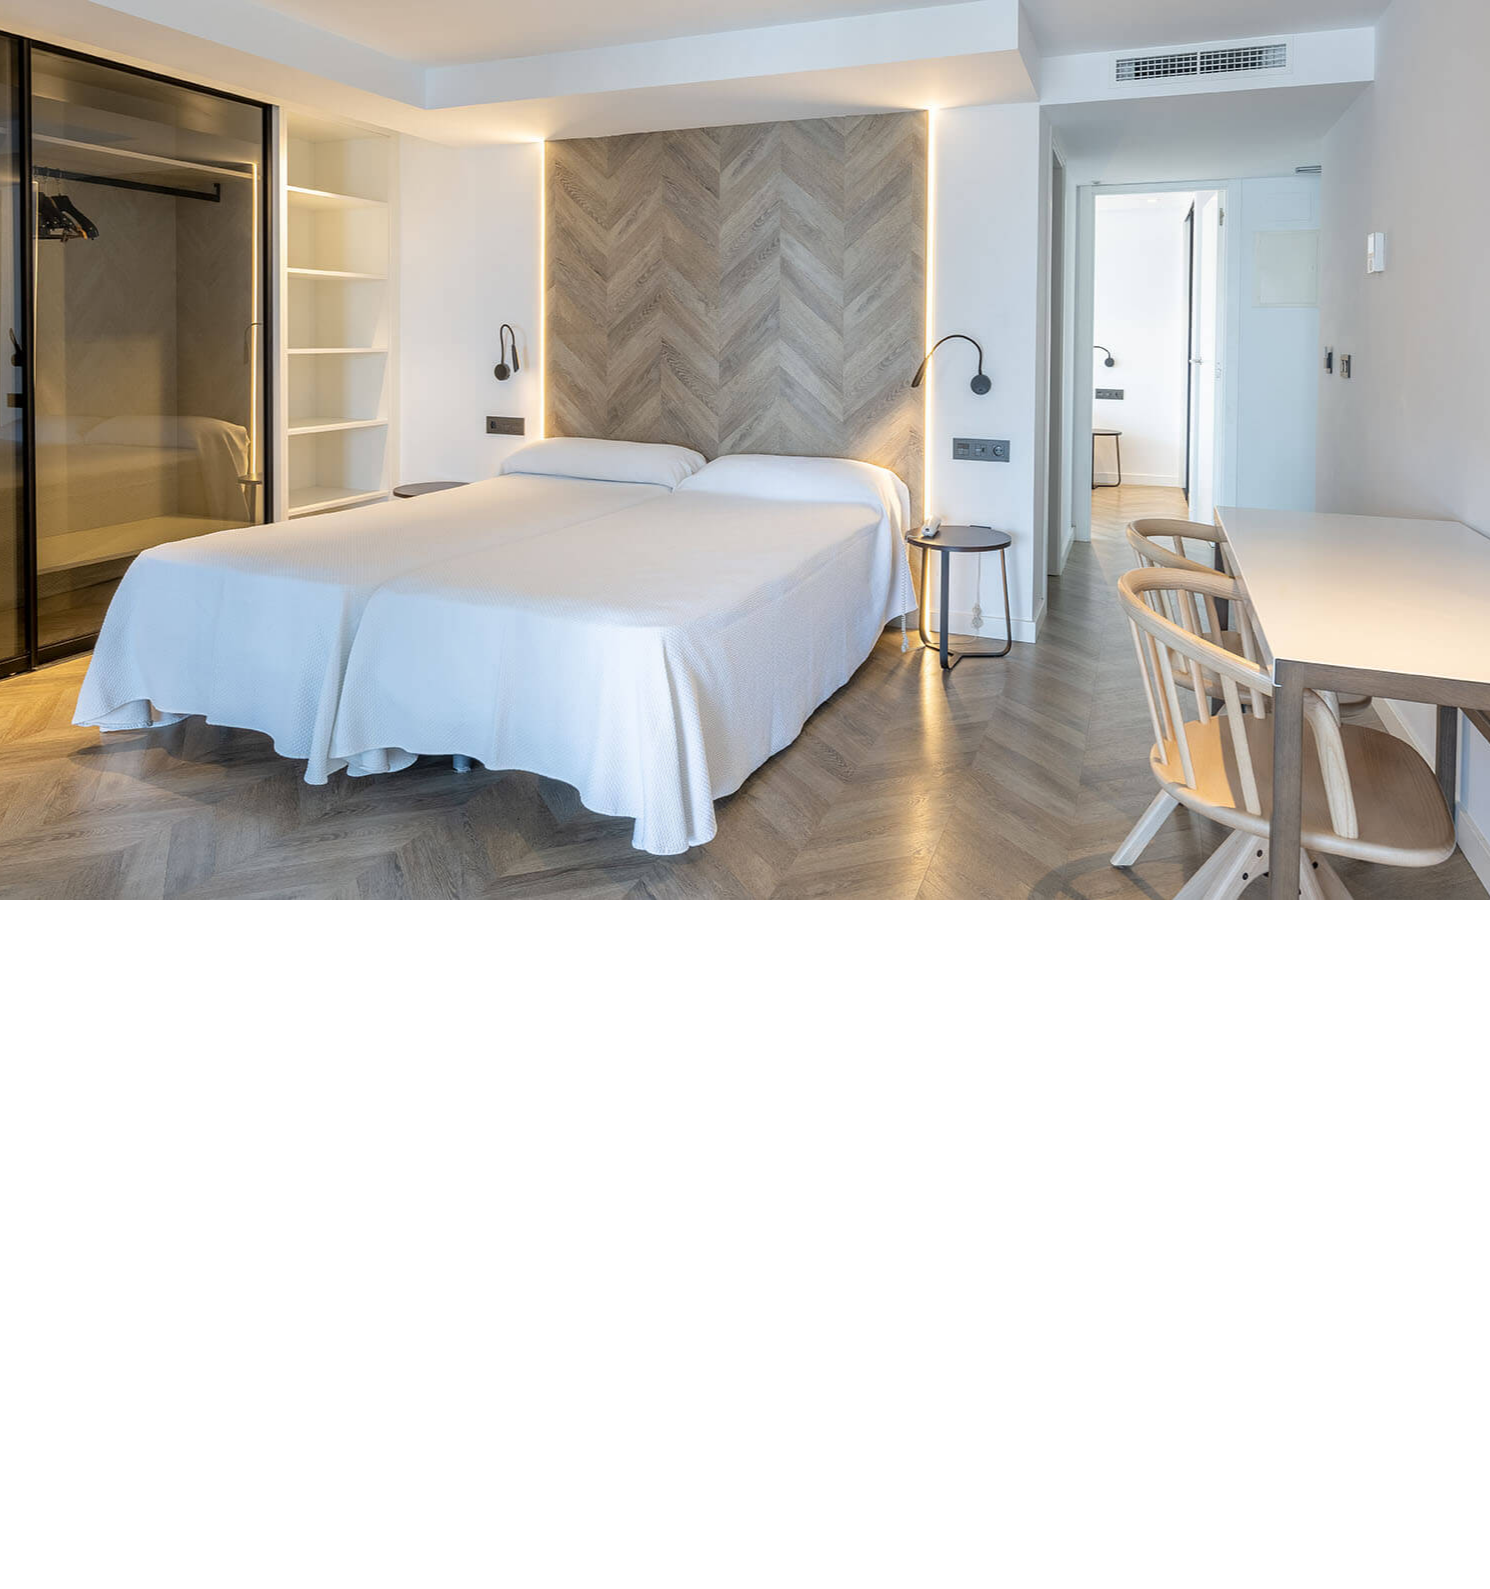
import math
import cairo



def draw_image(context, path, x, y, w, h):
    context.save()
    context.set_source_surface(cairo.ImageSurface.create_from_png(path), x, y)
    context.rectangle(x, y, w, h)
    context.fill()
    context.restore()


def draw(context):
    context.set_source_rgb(1, 1, 1)
    context.paint()
    draw_image(context, "images/1.png", 0, 0, 1490, 900)


surface = cairo.ImageSurface(cairo.Format.RGB24, 1490, 1589)
context = cairo.Context(surface)
options = cairo.FontOptions()
options.set_hint_metrics(cairo.HintMetrics.OFF)
options.set_hint_style(cairo.HintStyle.NONE)
context.set_font_options(options)
context.set_miter_limit(4)
draw(context)
surface.write_to_png("out.png")
